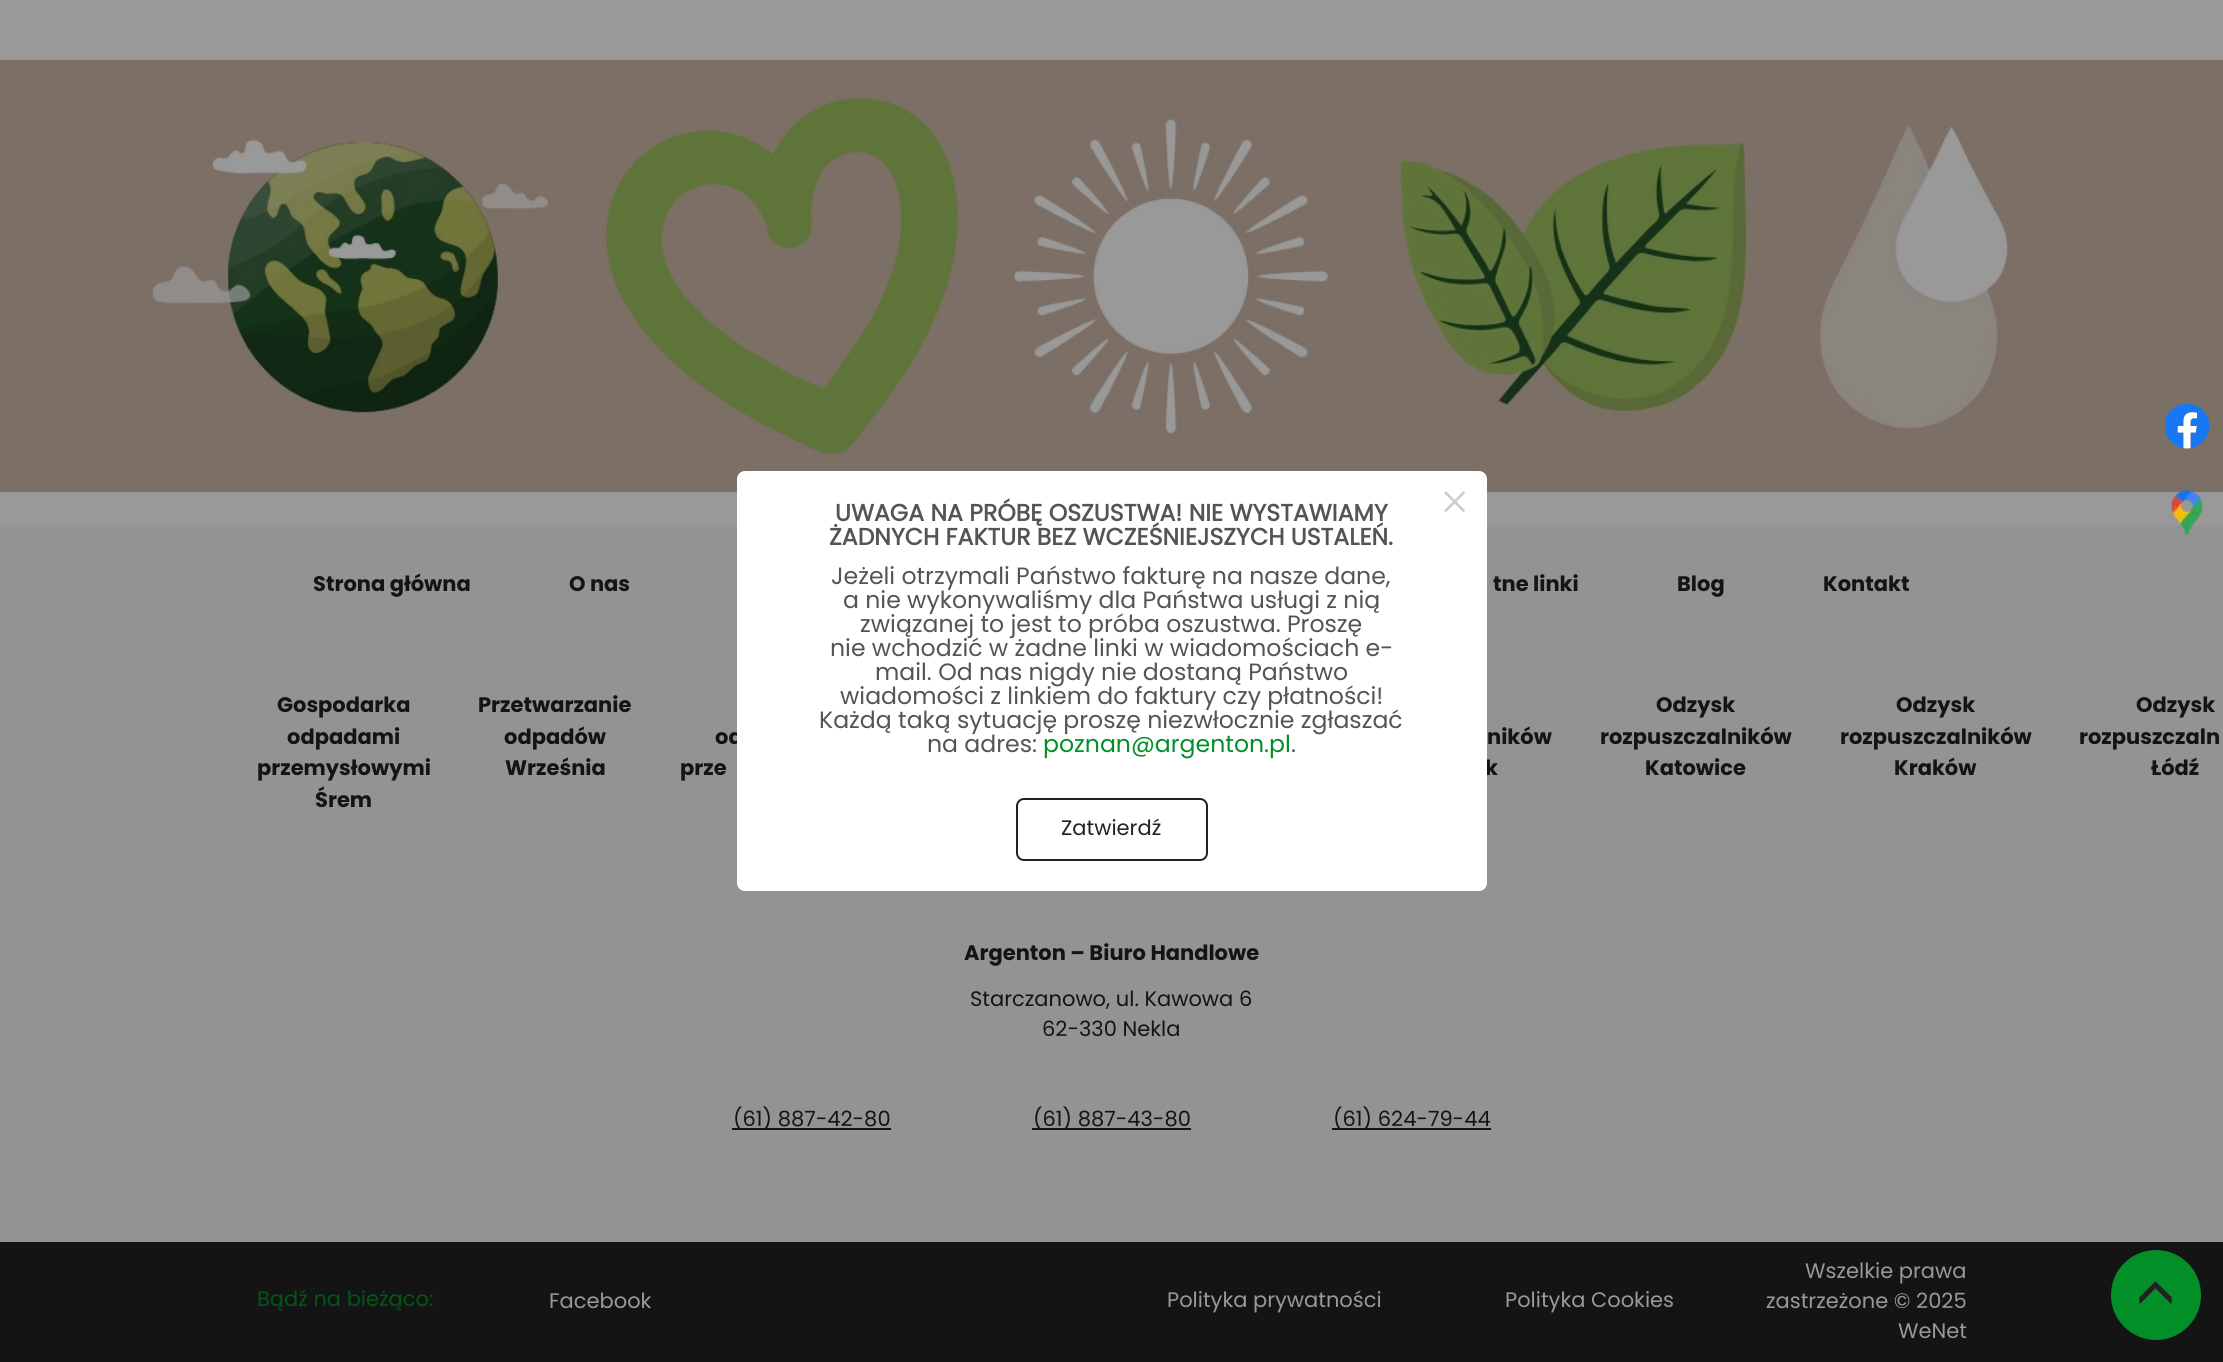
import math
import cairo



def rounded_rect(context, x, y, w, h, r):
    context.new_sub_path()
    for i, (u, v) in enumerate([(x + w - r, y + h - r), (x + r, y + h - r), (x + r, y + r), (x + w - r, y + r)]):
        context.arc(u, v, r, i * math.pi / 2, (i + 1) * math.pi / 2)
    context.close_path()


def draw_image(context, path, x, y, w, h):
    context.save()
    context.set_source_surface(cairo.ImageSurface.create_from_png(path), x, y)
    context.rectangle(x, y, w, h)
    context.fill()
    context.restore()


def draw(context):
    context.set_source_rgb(153 / 255, 153 / 255, 153 / 255)
    context.paint()
    draw_image(context, "images/1.png", 0, 60, 2223, 432)
    draw_image(context, "images/2.png", 2165, 404, 45, 45)
    context.set_source_rgb(147 / 255, 147 / 255, 147 / 255)
    context.rectangle(0, 525, 2223, 717)
    context.fill()
    draw_image(context, "images/3.png", 2171, 490, 32, 46)
    context.set_source_rgb(20 / 255, 20 / 255, 20 / 255)
    context.rectangle(732, 1128, 159, 2)
    context.fill()
    context.rectangle(1032, 1128, 159, 2)
    context.fill()
    context.rectangle(1332, 1128, 159, 2)
    context.fill()
    context.rectangle(0, 1242, 2223, 120)
    context.fill()
    context.set_source_rgb(2 / 255, 143 / 255, 40 / 255)
    context.arc(2156, 1295, 45, 0, 2 * math.pi)
    context.fill()
    draw_image(context, "images/4.png", 2139, 1281, 33, 23)
    context.select_font_face("Poppins", cairo.FontSlant.NORMAL, cairo.FontWeight.BOLD)
    context.set_font_size(21)
    context.set_source_rgb(20 / 255, 20 / 255, 20 / 255)
    context.move_to(313, 591)
    context.show_text("Strona główna")
    context.move_to(569, 591)
    context.show_text("O nas")
    context.move_to(1493, 591)
    context.show_text("tne linki")
    context.move_to(1677, 591)
    context.show_text("Blog")
    context.move_to(1823, 591)
    context.show_text("Kontakt")
    context.move_to(277, 712)
    context.show_text("Gospodarka")
    context.move_to(287, 744)
    context.show_text("odpadami")
    context.move_to(257, 775)
    context.show_text("przemysłowymi")
    context.move_to(315, 807)
    context.show_text("Śrem")
    context.move_to(478, 712)
    context.show_text("Przetwarzanie")
    context.move_to(504, 744)
    context.show_text("odpadów")
    context.move_to(505, 775)
    context.show_text("Września")
    context.move_to(715, 744)
    context.show_text("od")
    context.move_to(680, 775)
    context.show_text("prze")
    context.move_to(1487, 744)
    context.show_text("ników")
    context.move_to(1485, 775)
    context.show_text("k")
    context.set_source_rgb(1, 1, 1)
    rounded_rect(context, 737, 471, 750, 420, 8)
    context.fill()
    context.select_font_face("Liberation Serif")
    context.set_font_size(52)
    context.set_source_rgb(204 / 255, 204 / 255, 204 / 255)
    context.move_to(1440, 519)
    context.show_text("×")
    rounded_rect(context, 1017, 799, 190, 61, 7)
    context.set_source_rgb(34 / 255, 34 / 255, 34 / 255)
    context.stroke()
    context.select_font_face("Poppins")
    context.set_font_size(21)
    context.move_to(1061, 835)
    context.show_text("Zatwierdź")
    context.set_font_size(23.6)
    context.set_source_rgb(84 / 255, 84 / 255, 84 / 255)
    context.move_to(1291, 752)
    context.show_text(".")
    context.set_source_rgb(2 / 255, 143 / 255, 40 / 255)
    context.move_to(1043, 752)
    context.show_text("poznan@argenton.pl")
    context.set_source_rgb(84 / 255, 84 / 255, 84 / 255)
    context.move_to(927, 752)
    context.show_text("na adres:")
    context.move_to(819, 728)
    context.show_text("Każdą taką sytuację proszę niezwłocznie zgłaszać")
    context.move_to(840, 704)
    context.show_text("wiadomości z linkiem do faktury czy płatności!")
    context.move_to(875, 680)
    context.show_text("mail. Od nas nigdy nie dostaną Państwo")
    context.move_to(830, 656)
    context.show_text("nie wchodzić w żadne linki w wiadomościach e-")
    context.move_to(860, 632)
    context.show_text("związanej to jest to próba oszustwa. Proszę")
    context.move_to(843, 608)
    context.show_text("a nie wykonywaliśmy dla Państwa usługi z nią")
    context.move_to(831, 584)
    context.show_text("Jeżeli otrzymali Państwo fakturę na nasze dane,")
    context.select_font_face("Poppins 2", cairo.FontSlant.NORMAL, cairo.FontWeight.BOLD)
    context.move_to(829, 545)
    context.show_text("ŻADNYCH FAKTUR BEZ WCZEŚNIEJSZYCH USTALEŃ.")
    context.move_to(835, 521)
    context.show_text("UWAGA NA PRÓBĘ OSZUSTWA! NIE WYSTAWIAMY")
    context.select_font_face("Poppins", cairo.FontSlant.NORMAL, cairo.FontWeight.BOLD)
    context.set_font_size(21)
    context.set_source_rgb(20 / 255, 20 / 255, 20 / 255)
    context.move_to(1656, 712)
    context.show_text("Odzysk")
    context.move_to(1600, 744)
    context.show_text("rozpuszczalników")
    context.move_to(1645, 775)
    context.show_text("Katowice")
    context.move_to(1896, 712)
    context.show_text("Odzysk")
    context.move_to(1840, 744)
    context.show_text("rozpuszczalników")
    context.move_to(1894, 775)
    context.show_text("Kraków")
    context.move_to(2136, 712)
    context.show_text("Odzysk")
    context.move_to(2079, 744)
    context.show_text("rozpuszczaln")
    context.move_to(2151, 775)
    context.show_text("Łódź")
    context.move_to(964, 960)
    context.show_text("Argenton – Biuro Handlowe")
    context.select_font_face("Poppins")
    context.move_to(970, 1006)
    context.show_text("Starczanowo, ul. Kawowa 6")
    context.move_to(1042, 1036)
    context.show_text("62-330 Nekla")
    context.move_to(733, 1126)
    context.show_text("(61) 887-42-80")
    context.move_to(1033, 1126)
    context.show_text("(61) 887-43-80")
    context.move_to(1333, 1126)
    context.show_text("(61) 624-79-44")
    context.set_source_rgb(1 / 255, 86 / 255, 24 / 255)
    context.move_to(257, 1306)
    context.show_text("Bądź na bieżąco:")
    context.set_source_rgb(153 / 255, 153 / 255, 153 / 255)
    context.move_to(549, 1308)
    context.show_text("Facebook")
    context.move_to(1167, 1307)
    context.show_text("Polityka prywatności")
    context.move_to(1505, 1307)
    context.show_text("Polityka Cookies")
    context.move_to(1805, 1278)
    context.show_text("Wszelkie prawa")
    context.move_to(1766, 1308)
    context.show_text("zastrzeżone © 2025")
    context.move_to(1898, 1338)
    context.show_text("WeNet")


surface = cairo.ImageSurface(cairo.Format.RGB24, 2223, 1362)
context = cairo.Context(surface)
options = cairo.FontOptions()
options.set_hint_metrics(cairo.HintMetrics.OFF)
options.set_hint_style(cairo.HintStyle.NONE)
context.set_font_options(options)
context.set_miter_limit(4)
draw(context)
surface.write_to_png("out.png")
